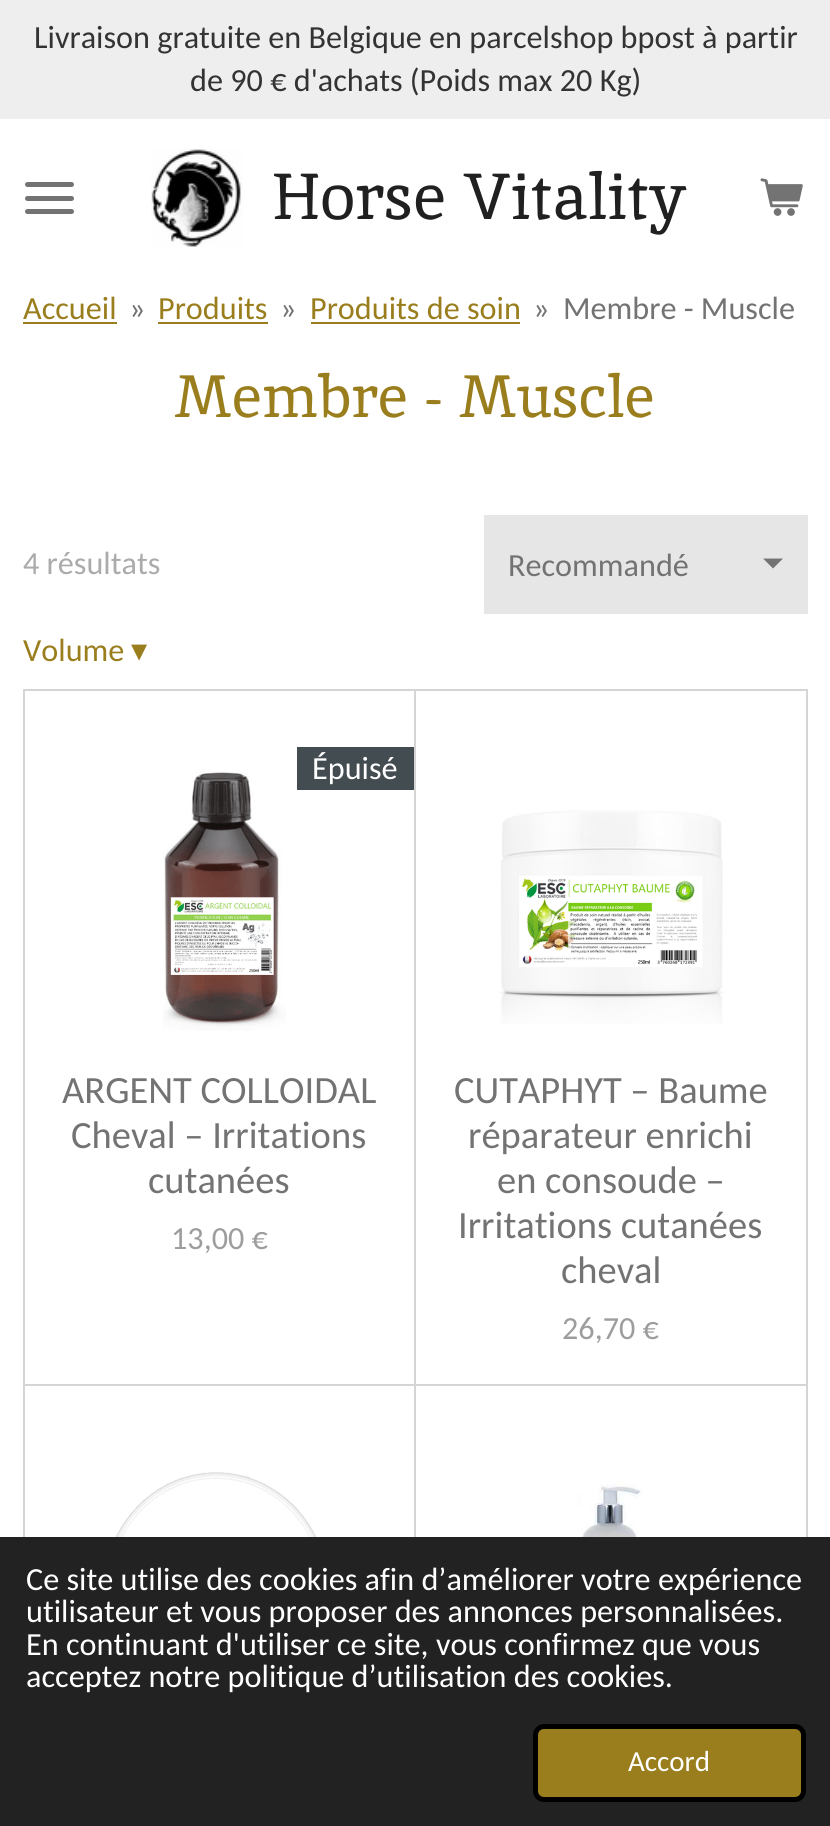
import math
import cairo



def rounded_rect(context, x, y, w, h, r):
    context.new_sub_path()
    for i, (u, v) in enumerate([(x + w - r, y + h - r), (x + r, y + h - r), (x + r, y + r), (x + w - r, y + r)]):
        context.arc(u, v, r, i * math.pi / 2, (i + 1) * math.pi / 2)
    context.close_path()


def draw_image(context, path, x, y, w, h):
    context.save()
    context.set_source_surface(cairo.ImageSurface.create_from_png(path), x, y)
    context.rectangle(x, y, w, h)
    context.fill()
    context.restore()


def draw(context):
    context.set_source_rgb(1, 1, 1)
    context.paint()
    context.set_source_rgb(238 / 255, 238 / 255, 238 / 255)
    context.rectangle(0, 0, 830, 119)
    context.fill()
    context.set_source_rgb(115 / 255, 115 / 255, 115 / 255)
    rounded_rect(context, 25, 196, 49, 5, 2.5)
    context.fill()
    rounded_rect(context, 25, 182, 49, 5, 2.5)
    context.fill()
    rounded_rect(context, 25, 209, 49, 5, 2.5)
    context.fill()
    draw_image(context, "images/1.png", 151, 149, 92, 98)
    draw_image(context, "images/2.png", 760, 178, 43, 38)
    context.set_source_rgb(154 / 255, 126 / 255, 30 / 255)
    context.rectangle(23, 322, 94, 2)
    context.fill()
    context.rectangle(158, 322, 110, 2)
    context.fill()
    context.rectangle(311, 322, 209, 2)
    context.fill()
    context.set_source_rgb(230 / 255, 230 / 255, 230 / 255)
    context.rectangle(484, 515, 324, 99)
    context.fill()
    context.set_source_rgb(115 / 255, 115 / 255, 115 / 255)
    context.new_path()
    context.move_to(773, 568.5)
    context.line_to(763, 558.5)
    context.line_to(783, 558.5)
    context.close_path()
    context.fill()
    context.rectangle(24, 690, 391, 695)
    context.set_source_rgb(213 / 255, 213 / 255, 213 / 255)
    context.stroke()
    draw_image(context, "images/3.png", 163, 771, 123, 260)
    context.set_source_rgb(66 / 255, 76 / 255, 81 / 255)
    context.rectangle(297, 747, 117, 43)
    context.fill()
    context.rectangle(415, 690, 392, 695)
    context.set_source_rgb(213 / 255, 213 / 255, 213 / 255)
    context.stroke()
    draw_image(context, "images/4.png", 499, 810, 225, 214)
    context.rectangle(24, 1385, 391, 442)
    context.stroke()
    draw_image(context, "images/5.png", 111, 1472, 211, 65)
    context.rectangle(415, 1385, 392, 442)
    context.stroke()
    draw_image(context, "images/6.png", 571, 1481, 71, 56)
    context.set_source_rgb(34 / 255, 34 / 255, 34 / 255)
    context.rectangle(0, 1537, 830, 289)
    context.fill()
    context.set_source_rgb(154 / 255, 126 / 255, 30 / 255)
    rounded_rect(context, 535.5, 1726.5, 268, 73, 8.5)
    context.fill_preserve()
    context.set_source_rgb(0, 0, 0)
    context.set_line_width(5)
    context.stroke()
    context.select_font_face("Carlito")
    context.set_font_size(32.2)
    context.set_source_rgb(51 / 255, 51 / 255, 51 / 255)
    context.move_to(34, 48)
    context.show_text("Livraison gratuite en Belgique en parcelshop bpost à partir")
    context.move_to(190, 91)
    context.show_text("de 90 € d'achats (Poids max 20 Kg)")
    context.select_font_face("Inika")
    context.set_font_size(64.75)
    context.set_source_rgb(32 / 255, 32 / 255, 32 / 255)
    context.move_to(272, 219)
    context.show_text("Horse Vitality")
    context.select_font_face("Carlito")
    context.set_font_size(32.2)
    context.set_source_rgb(154 / 255, 126 / 255, 30 / 255)
    context.move_to(23, 319)
    context.show_text("Accueil")
    context.set_source_rgb(115 / 255, 115 / 255, 115 / 255)
    context.move_to(129, 319)
    context.show_text("»")
    context.set_source_rgb(154 / 255, 126 / 255, 30 / 255)
    context.move_to(158, 319)
    context.show_text("Produits")
    context.set_source_rgb(115 / 255, 115 / 255, 115 / 255)
    context.move_to(280, 319)
    context.show_text("»")
    context.set_source_rgb(154 / 255, 126 / 255, 30 / 255)
    context.move_to(310, 319)
    context.show_text("Produits de soin")
    context.set_source_rgb(115 / 255, 115 / 255, 115 / 255)
    context.move_to(533, 319)
    context.show_text("»")
    context.move_to(563, 319)
    context.show_text("Membre - Muscle")
    context.select_font_face("Inika")
    context.set_font_size(59.5)
    context.set_source_rgb(154 / 255, 126 / 255, 30 / 255)
    context.move_to(174, 417)
    context.show_text("Membre - Muscle")
    context.select_font_face("Carlito")
    context.set_font_size(32.2)
    context.set_source_rgb(171 / 255, 171 / 255, 171 / 255)
    context.move_to(23, 574)
    context.show_text("4 résultats")
    context.set_source_rgb(115 / 255, 115 / 255, 115 / 255)
    context.move_to(508, 576)
    context.show_text("Recommandé")
    context.set_source_rgb(154 / 255, 126 / 255, 30 / 255)
    context.move_to(23, 661)
    context.show_text("Volume")
    context.select_font_face("DejaVu Sans")
    context.move_to(131, 661)
    context.show_text("▾")
    context.select_font_face("Carlito")
    context.set_source_rgb(1, 1, 1)
    context.move_to(312, 779)
    context.show_text("Épuisé")
    context.set_font_size(38.5)
    context.set_source_rgb(115 / 255, 115 / 255, 115 / 255)
    context.move_to(62, 1103)
    context.show_text("ARGENT COLLOIDAL")
    context.move_to(71, 1148)
    context.show_text("Cheval – Irritations")
    context.move_to(148, 1193)
    context.show_text("cutanées")
    context.set_font_size(32.2)
    context.set_source_rgb(157 / 255, 157 / 255, 157 / 255)
    context.move_to(171, 1249)
    context.show_text("13,00 €")
    context.set_font_size(38.5)
    context.set_source_rgb(115 / 255, 115 / 255, 115 / 255)
    context.move_to(454, 1103)
    context.show_text("CUTAPHYT – Baume")
    context.move_to(468, 1148)
    context.show_text("réparateur enrichi")
    context.move_to(497, 1193)
    context.show_text("en consoude –")
    context.move_to(458, 1238)
    context.show_text("Irritations cutanées")
    context.move_to(561, 1283)
    context.show_text("cheval")
    context.set_font_size(32.2)
    context.set_source_rgb(157 / 255, 157 / 255, 157 / 255)
    context.move_to(562, 1339)
    context.show_text("26,70 €")
    context.set_source_rgb(1, 1, 1)
    context.move_to(26, 1590)
    context.show_text("Ce site utilise des cookies afin d’améliorer votre expérience")
    context.move_to(26, 1622)
    context.show_text("utilisateur et vous proposer des annonces personnalisées.")
    context.move_to(26, 1655)
    context.show_text("En continuant d'utiliser ce site, vous confirmez que vous")
    context.move_to(26, 1687)
    context.show_text("acceptez notre politique d’utilisation des cookies.")
    context.set_font_size(29)
    context.move_to(628, 1771)
    context.show_text("Accord")


surface = cairo.ImageSurface(cairo.Format.RGB24, 830, 1826)
context = cairo.Context(surface)
options = cairo.FontOptions()
options.set_hint_metrics(cairo.HintMetrics.OFF)
options.set_hint_style(cairo.HintStyle.NONE)
context.set_font_options(options)
context.set_miter_limit(4)
draw(context)
surface.write_to_png("out.png")
